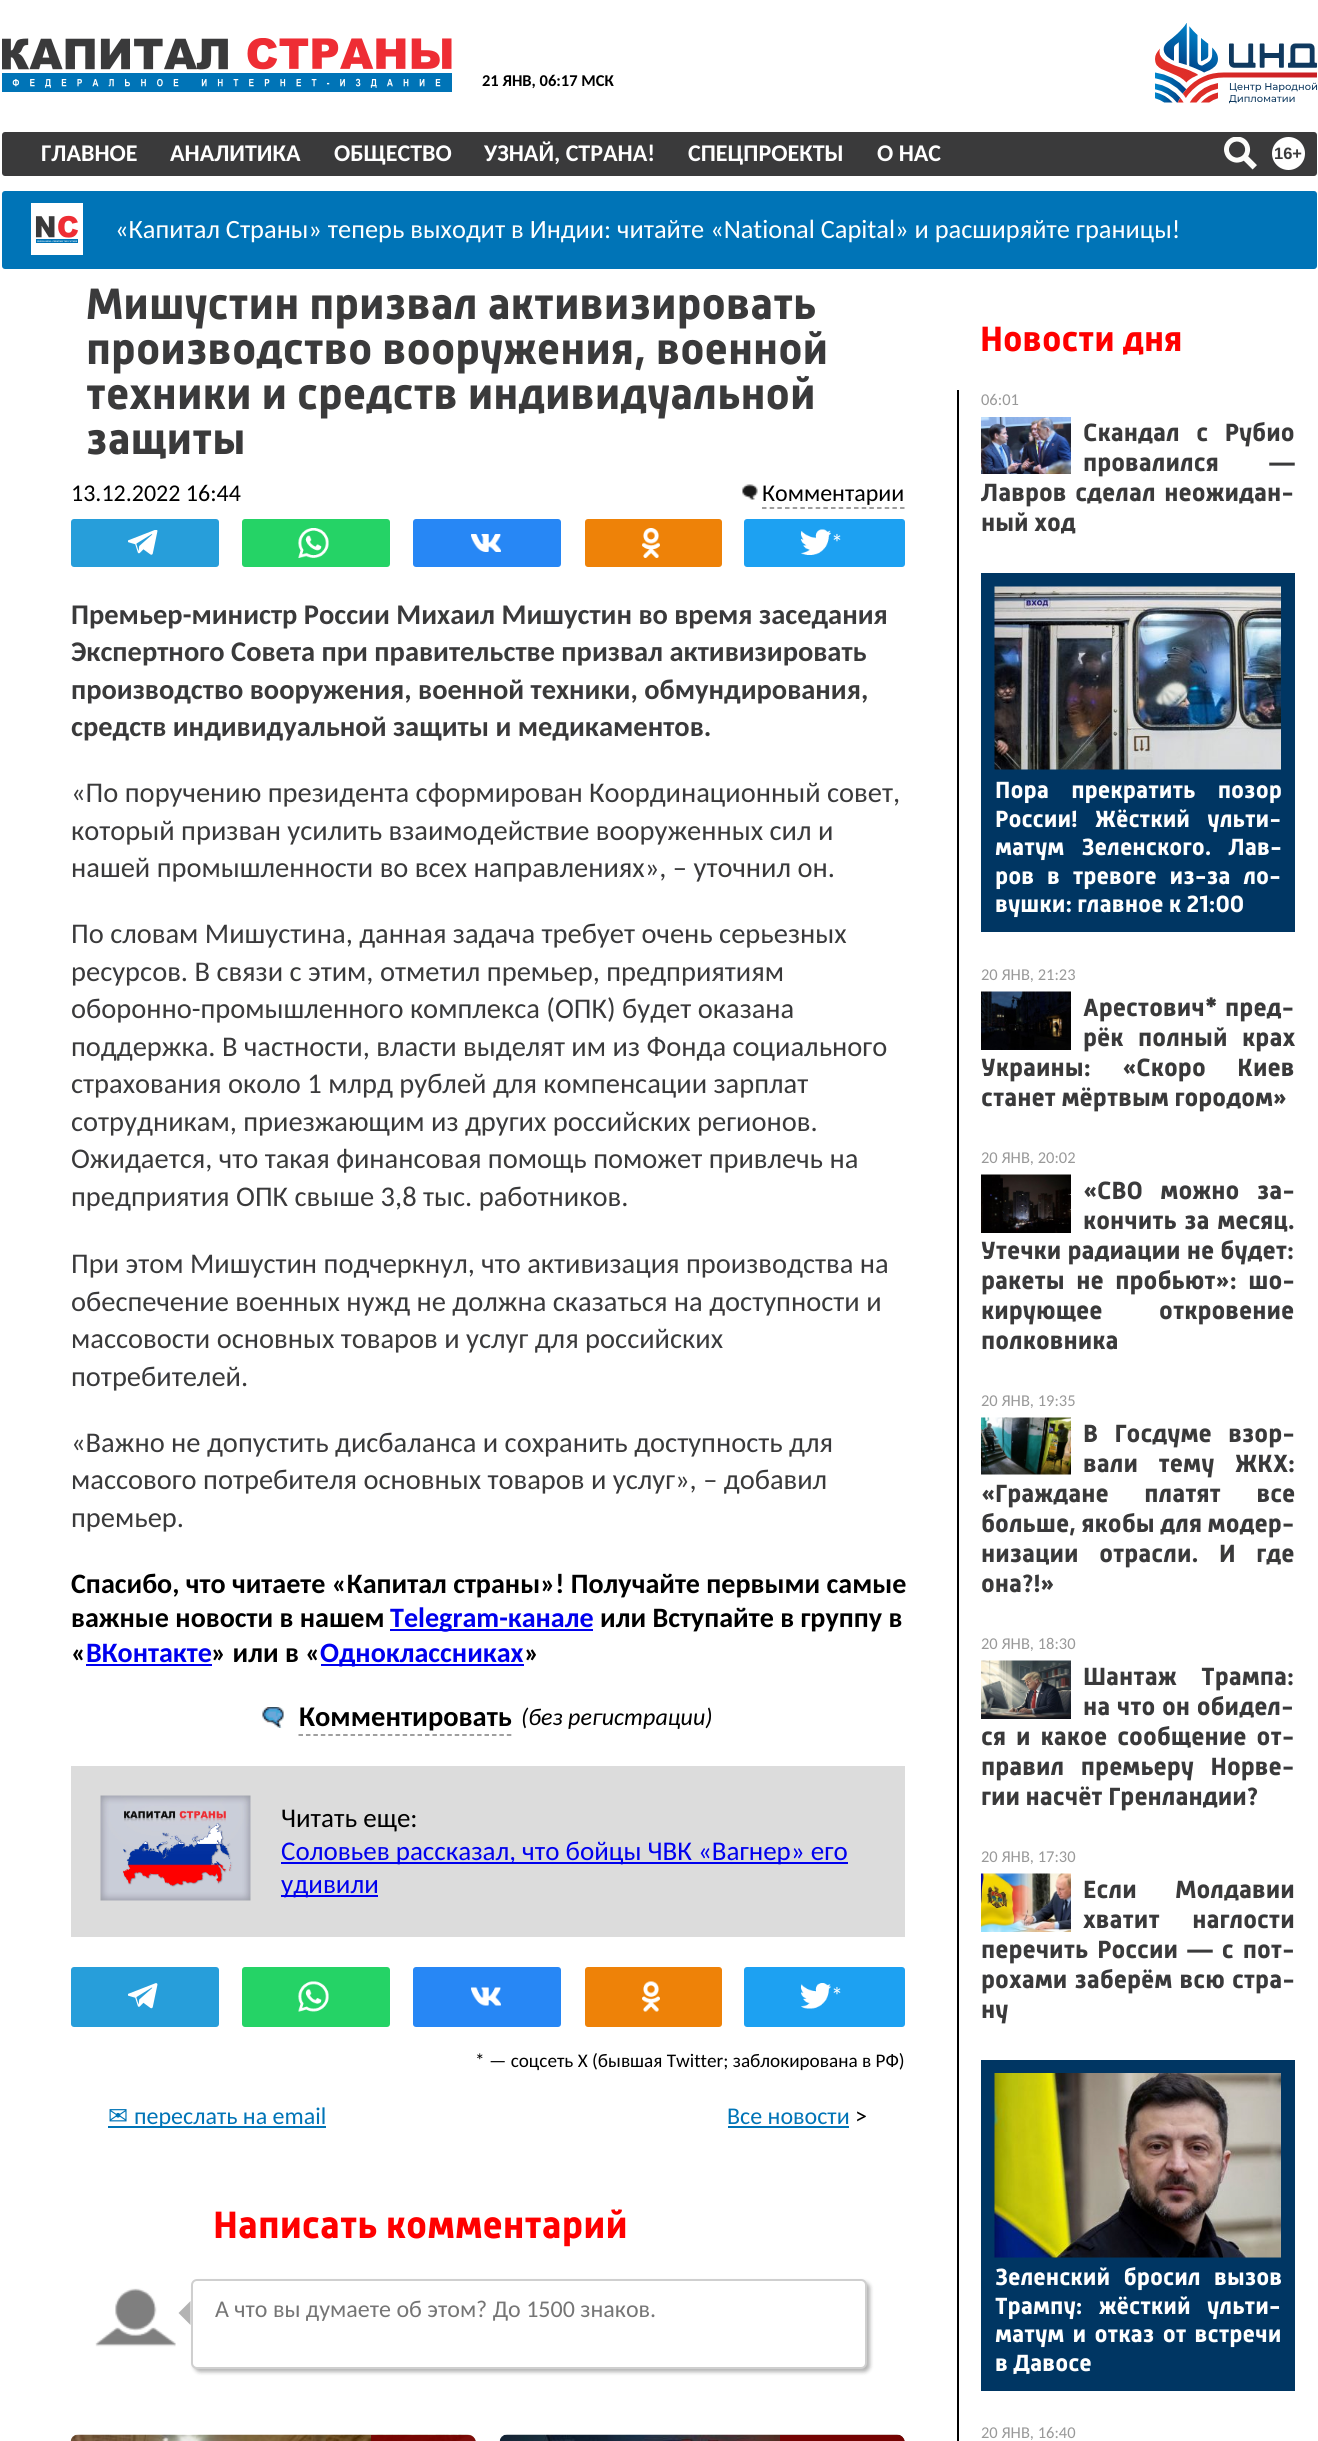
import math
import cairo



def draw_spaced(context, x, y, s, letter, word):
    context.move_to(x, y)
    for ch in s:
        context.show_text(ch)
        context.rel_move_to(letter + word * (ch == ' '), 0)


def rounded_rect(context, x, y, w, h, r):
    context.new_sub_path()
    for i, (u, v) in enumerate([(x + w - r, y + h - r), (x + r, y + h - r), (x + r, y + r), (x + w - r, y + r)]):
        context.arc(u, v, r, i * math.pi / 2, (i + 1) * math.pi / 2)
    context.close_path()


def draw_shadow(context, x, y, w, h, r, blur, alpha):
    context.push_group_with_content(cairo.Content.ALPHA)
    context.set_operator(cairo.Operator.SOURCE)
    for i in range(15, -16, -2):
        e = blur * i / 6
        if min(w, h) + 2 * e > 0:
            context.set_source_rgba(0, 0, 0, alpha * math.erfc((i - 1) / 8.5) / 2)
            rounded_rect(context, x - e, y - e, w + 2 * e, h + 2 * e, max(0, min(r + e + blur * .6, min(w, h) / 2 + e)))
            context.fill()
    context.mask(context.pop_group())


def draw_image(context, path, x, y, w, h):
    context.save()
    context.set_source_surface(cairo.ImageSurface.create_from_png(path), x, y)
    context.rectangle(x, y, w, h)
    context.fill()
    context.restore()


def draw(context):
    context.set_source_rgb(1, 1, 1)
    context.paint()
    draw_image(context, "images/1.png", 2, 38, 450, 54)
    draw_image(context, "images/2.png", 1155, 23, 162, 81)
    context.set_source_rgb(58 / 255, 58 / 255, 59 / 255)
    rounded_rect(context, 2, 132, 1315, 44, 3)
    context.fill()
    draw_image(context, "images/3.png", 1224, 137, 33, 33)
    context.set_source_rgb(1, 1, 1)
    context.arc(1288.5, 153.5, 16.5, 0, 2 * math.pi)
    context.fill()
    context.set_source_rgb(0, 116 / 255, 183 / 255)
    rounded_rect(context, 2, 191, 1315, 78, 3)
    context.fill()
    draw_image(context, "images/4.png", 31, 203, 52, 52)
    draw_image(context, "images/5.png", 742, 484, 16, 16)
    context.new_path()
    context.move_to(762, 508)
    context.line_to(904.5, 508)
    context.set_source_rgb(128 / 255, 128 / 255, 128 / 255)
    context.set_line_width(1.5)
    context.set_dash([4.5, 3.17])
    context.stroke()
    context.set_source_rgb(39 / 255, 158 / 255, 218 / 255)
    rounded_rect(context, 71, 519, 148, 48, 3)
    context.fill()
    draw_image(context, "images/6.png", 128, 530, 30, 25)
    context.set_source_rgb(37 / 255, 211 / 255, 102 / 255)
    rounded_rect(context, 242, 519, 148, 48, 3)
    context.fill()
    draw_image(context, "images/7.png", 298, 528, 31, 30)
    context.set_source_rgb(39 / 255, 135 / 255, 245 / 255)
    rounded_rect(context, 413, 519, 148, 48, 3)
    context.fill()
    draw_image(context, "images/8.png", 471, 534, 30, 18)
    context.set_source_rgb(238 / 255, 130 / 255, 8 / 255)
    rounded_rect(context, 585, 519, 137, 48, 3)
    context.fill()
    draw_image(context, "images/9.png", 642, 528, 18, 30)
    context.set_source_rgb(29 / 255, 161 / 255, 242 / 255)
    rounded_rect(context, 744, 519, 161, 48, 3)
    context.fill()
    draw_image(context, "images/10.png", 801, 529, 30, 26)
    context.set_source_rgb(0, 0, 238 / 255)
    context.rectangle(390, 1629, 203, 2)
    context.fill()
    context.rectangle(86, 1664, 126, 2)
    context.fill()
    context.rectangle(321, 1664, 203, 2)
    context.fill()
    draw_image(context, "images/11.png", 262, 1707, 22, 21)
    context.new_path()
    context.move_to(298.5, 1735)
    context.line_to(511.5, 1735)
    context.set_source_rgb(128 / 255, 128 / 255, 128 / 255)
    context.set_dash([4.5, 2.94])
    context.stroke()
    context.set_source_rgb(220 / 255, 220 / 255, 220 / 255)
    context.rectangle(71, 1766, 834, 171)
    context.fill()
    draw_image(context, "images/12.png", 100, 1795, 151, 106)
    context.set_source_rgb(0, 0, 238 / 255)
    context.rectangle(281, 1862, 567, 2)
    context.fill()
    context.rectangle(281, 1895, 97, 2)
    context.fill()
    context.set_source_rgb(39 / 255, 158 / 255, 218 / 255)
    rounded_rect(context, 71, 1967, 148, 60, 3)
    context.fill()
    draw_image(context, "images/13.png", 128, 1983, 30, 26)
    context.set_source_rgb(37 / 255, 211 / 255, 102 / 255)
    rounded_rect(context, 242, 1967, 148, 60, 3)
    context.fill()
    draw_image(context, "images/14.png", 298, 1981, 31, 31)
    context.set_source_rgb(39 / 255, 135 / 255, 245 / 255)
    rounded_rect(context, 413, 1967, 148, 60, 3)
    context.fill()
    draw_image(context, "images/15.png", 471, 1987, 30, 19)
    context.set_source_rgb(238 / 255, 130 / 255, 8 / 255)
    rounded_rect(context, 585, 1967, 137, 60, 3)
    context.fill()
    draw_image(context, "images/16.png", 642, 1981, 18, 31)
    context.set_source_rgb(29 / 255, 161 / 255, 242 / 255)
    rounded_rect(context, 744, 1967, 161, 60, 3)
    context.fill()
    draw_image(context, "images/17.png", 801, 1983, 30, 26)
    context.set_source_rgb(0, 116 / 255, 183 / 255)
    context.rectangle(108, 2126, 218, 2)
    context.fill()
    context.rectangle(728, 2126, 121, 2)
    context.fill()
    draw_image(context, "images/18.png", 95, 2288, 81, 59)
    context.set_source_rgb(0, 0, 0)
    draw_shadow(context, 194, 2282, 676, 90, 6, 2, 0.3)
    context.set_source_rgb(179 / 255, 179 / 255, 179 / 255)
    context.new_path()
    context.move_to(190.5, 2301)
    context.line_to(190.5, 2325)
    context.line_to(178.5, 2313)
    context.close_path()
    context.fill()
    context.set_source_rgb(1, 1, 1)
    rounded_rect(context, 192, 2280, 674, 88, 5)
    context.fill_preserve()
    context.set_source_rgb(207 / 255, 207 / 255, 207 / 255)
    context.set_line_width(2)
    context.set_dash([])
    context.stroke()
    draw_image(context, "images/19.png", 70, 2434, 406, 7)
    gradient = cairo.LinearGradient(273, 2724, 273, 2435)
    gradient.add_color_stop_rgba(0, 0, 0, 0, 0.7)
    gradient.add_color_stop_rgba(0.2, 0, 0, 0, 0.7)
    gradient.add_color_stop_rgba(0.49, 0, 0, 0, 0)
    gradient.add_color_stop_rgba(0.93, 0, 0, 0, 0)
    gradient.add_color_stop_rgba(1, 0, 0, 0, 0.1)
    context.set_source(gradient)
    rounded_rect(context, 71, 2435, 405, 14, 8)
    context.fill()
    context.set_source_rgba(121 / 255, 0, 0, 0.9)
    context.new_path()
    context.move_to(371, 2435)
    context.line_to(468, 2435)
    context.curve_to(472.5, 2435, 476, 2438.5, 476, 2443)
    context.line_to(476, 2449)
    context.line_to(374, 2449)
    context.curve_to(372.5, 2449, 371, 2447.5, 371, 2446)
    context.close_path()
    context.fill()
    draw_image(context, "images/20.png", 499, 2434, 406, 7)
    gradient = cairo.LinearGradient(702, 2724, 702, 2435)
    gradient.add_color_stop_rgba(0, 0, 0, 0, 0.7)
    gradient.add_color_stop_rgba(0.2, 0, 0, 0, 0.7)
    gradient.add_color_stop_rgba(0.49, 0, 0, 0, 0)
    gradient.add_color_stop_rgba(0.93, 0, 0, 0, 0)
    gradient.add_color_stop_rgba(1, 0, 0, 0, 0.1)
    context.set_source(gradient)
    rounded_rect(context, 500, 2435, 405, 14, 8)
    context.fill()
    context.set_source_rgba(121 / 255, 0, 0, 0.9)
    context.new_path()
    context.move_to(780, 2435)
    context.line_to(897, 2435)
    context.curve_to(901.5, 2435, 905, 2438.5, 905, 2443)
    context.line_to(905, 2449)
    context.line_to(783, 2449)
    context.curve_to(781.5, 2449, 780, 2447.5, 780, 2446)
    context.close_path()
    context.fill()
    context.set_source_rgb(0, 0, 0)
    context.rectangle(957, 390, 2, 2051)
    context.fill()
    draw_image(context, "images/21.png", 981, 417, 90, 57)
    context.set_source_rgb(0, 54 / 255, 99 / 255)
    context.rectangle(981, 573, 314, 359)
    context.fill()
    draw_image(context, "images/22.png", 994, 586, 287, 184)
    draw_image(context, "images/23.png", 981, 991, 90, 59)
    draw_image(context, "images/24.png", 981, 1174, 90, 59)
    draw_image(context, "images/25.png", 981, 1417, 90, 58)
    draw_image(context, "images/26.png", 981, 1660, 90, 59)
    draw_image(context, "images/27.png", 981, 1873, 90, 59)
    context.rectangle(981, 2060, 314, 331)
    context.fill()
    draw_image(context, "images/28.png", 994, 2073, 287, 185)
    context.select_font_face("Carlito", cairo.FontSlant.NORMAL, cairo.FontWeight.BOLD)
    context.set_font_size(16.5)
    context.set_source_rgb(0, 0, 0)
    context.move_to(482, 86)
    context.show_text("21 ЯНВ, 06:17 МСК")
    context.set_font_size(24)
    context.set_source_rgb(1, 1, 1)
    context.move_to(41, 161)
    context.show_text("ГЛАВНОЕ")
    context.move_to(170, 161)
    context.show_text("АНАЛИТИКА")
    context.move_to(334, 161)
    context.show_text("ОБЩЕСТВО")
    context.move_to(484, 161)
    context.show_text("УЗНАЙ, СТРАНА!")
    context.move_to(688, 161)
    context.show_text("СПЕЦПРОЕКТЫ")
    context.move_to(877, 161)
    context.show_text("О НАС")
    context.select_font_face("Liberation Sans", cairo.FontSlant.NORMAL, cairo.FontWeight.BOLD)
    context.set_font_size(16.5)
    context.set_source_rgb(58 / 255, 58 / 255, 59 / 255)
    context.move_to(1274, 159)
    context.show_text("16+")
    context.select_font_face("Carlito")
    context.set_font_size(26.4)
    context.set_source_rgb(1, 1, 1)
    context.move_to(115, 238)
    context.show_text("«Капитал Страны» теперь выходит в Индии: читайте «National Capital» и расширяйте границы!")
    context.select_font_face("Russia", cairo.FontSlant.NORMAL, cairo.FontWeight.BOLD)
    context.set_font_size(45)
    context.set_source_rgb(58 / 255, 58 / 255, 59 / 255)
    context.move_to(86, 319)
    context.show_text("Мишустин призвал активизировать")
    context.move_to(86, 364)
    context.show_text("производство вооружения, военной")
    context.move_to(86, 409)
    context.show_text("техники и средств индивидуальной")
    context.move_to(86, 454)
    context.show_text("защиты")
    context.select_font_face("Carlito")
    context.set_font_size(24)
    context.set_source_rgb(0, 0, 0)
    context.move_to(71, 501)
    context.show_text("13.12.2022 16:44")
    context.move_to(762, 501)
    context.show_text("Комментарии")
    context.set_source_rgb(1, 1, 1)
    context.move_to(831, 551)
    context.show_text("*")
    context.select_font_face("Carlito", cairo.FontSlant.NORMAL, cairo.FontWeight.BOLD)
    context.set_font_size(28.5)
    context.set_source_rgb(58 / 255, 58 / 255, 59 / 255)
    context.move_to(71, 624)
    context.show_text("Премьер-министр России Михаил Мишустин во время заседания")
    context.move_to(71, 661)
    context.show_text("Экспертного Совета при правительстве призвал активизировать")
    context.move_to(71, 699)
    context.show_text("производство вооружения, военной техники, обмундирования,")
    context.move_to(71, 736)
    context.show_text("средств индивидуальной защиты и медикаментов.")
    context.select_font_face("Carlito")
    context.move_to(71, 802)
    context.show_text("«По поручению президента сформирован Координационный совет,")
    context.move_to(71, 840)
    context.show_text("который призван усилить взаимодействие вооруженных сил и")
    context.move_to(71, 877)
    context.show_text("нашей промышленности во всех направлениях», – уточнил он.")
    context.move_to(71, 943)
    context.show_text("По словам Мишустина, данная задача требует очень серьезных")
    context.move_to(71, 981)
    context.show_text("ресурсов. В связи с этим, отметил премьер, предприятиям")
    context.move_to(71, 1018)
    context.show_text("оборонно-промышленного комплекса (ОПК) будет оказана")
    context.move_to(71, 1056)
    context.show_text("поддержка. В частности, власти выделят им из Фонда социального")
    context.move_to(71, 1093)
    context.show_text("страхования около 1 млрд рублей для компенсации зарплат")
    context.move_to(71, 1131)
    context.show_text("сотрудникам, приезжающим из других российских регионов.")
    context.move_to(71, 1168)
    context.show_text("Ожидается, что такая финансовая помощь поможет привлечь на")
    context.move_to(71, 1206)
    context.show_text("предприятия ОПК свыше 3,8 тыс. работников.")
    context.move_to(71, 1273)
    context.show_text("При этом Мишустин подчеркнул, что активизация производства на")
    context.move_to(71, 1311)
    context.show_text("обеспечение военных нужд не должна сказаться на доступности и")
    context.move_to(71, 1348)
    context.show_text("массовости основных товаров и услуг для российских")
    context.move_to(71, 1386)
    context.show_text("потребителей.")
    context.move_to(71, 1452)
    context.show_text("«Важно не допустить дисбаланса и сохранить доступность для")
    context.move_to(71, 1489)
    context.show_text("массового потребителя основных товаров и услуг», – добавил")
    context.move_to(71, 1527)
    context.show_text("премьер.")
    context.select_font_face("Carlito", cairo.FontSlant.NORMAL, cairo.FontWeight.BOLD)
    context.set_font_size(28.1)
    context.set_source_rgb(0, 0, 0)
    context.move_to(71, 1593)
    context.show_text("Спасибо, что читаете «Капитал страны»! Получайте первыми самые")
    context.move_to(71, 1627)
    context.show_text("важные новости в нашем")
    context.set_source_rgb(0, 0, 238 / 255)
    context.move_to(390, 1627)
    context.show_text("Telegram-канале")
    context.set_source_rgb(0, 0, 0)
    context.move_to(600, 1627)
    context.show_text("или Вступайте в группу в")
    context.move_to(71, 1662)
    context.show_text("«")
    context.set_source_rgb(0, 0, 238 / 255)
    context.move_to(86, 1662)
    context.show_text("ВКонтакте")
    context.set_source_rgb(0, 0, 0)
    context.move_to(211, 1662)
    context.show_text("» или в «")
    context.set_source_rgb(0, 0, 238 / 255)
    context.move_to(320, 1662)
    context.show_text("Одноклассниках")
    context.set_source_rgb(0, 0, 0)
    context.move_to(524, 1662)
    context.show_text("»")
    context.set_font_size(28.5)
    context.move_to(299, 1726)
    context.show_text("Комментировать")
    context.select_font_face("Carlito", cairo.FontSlant.ITALIC)
    context.set_font_size(24)
    context.move_to(521, 1725)
    context.show_text("(без регистрации)")
    context.select_font_face("Carlito")
    context.set_font_size(27)
    context.move_to(281, 1827)
    context.show_text("Читать еще:")
    context.set_source_rgb(0, 0, 238 / 255)
    context.move_to(281, 1860)
    context.show_text("Соловьев рассказал, что бойцы ЧВК «Вагнер» его")
    context.move_to(281, 1893)
    context.show_text("удивили")
    context.set_font_size(24)
    context.set_source_rgb(1, 1, 1)
    context.move_to(831, 2004)
    context.show_text("*")
    context.set_font_size(19.2)
    context.set_source_rgb(0, 0, 0)
    context.move_to(475, 2067)
    context.show_text("* — соцсеть Х (бывшая Twitter; заблокирована в РФ)")
    context.select_font_face("DejaVu Sans")
    context.set_font_size(24)
    context.set_source_rgb(0, 116 / 255, 183 / 255)
    context.move_to(108, 2124)
    context.show_text("✉")
    context.select_font_face("Carlito")
    context.move_to(134, 2124)
    context.show_text("переслать на email")
    context.move_to(727, 2124)
    context.show_text("Все новости")
    context.set_source_rgb(0, 0, 0)
    context.move_to(855, 2124)
    context.show_text(">")
    context.select_font_face("Russia", cairo.FontSlant.NORMAL, cairo.FontWeight.BOLD)
    context.set_font_size(39)
    context.set_source_rgb(1, 0, 0)
    context.move_to(213, 2238)
    context.show_text("Написать комментарий")
    context.select_font_face("Carlito")
    context.set_font_size(24)
    context.set_source_rgb(117 / 255, 117 / 255, 117 / 255)
    context.move_to(215, 2317)
    context.show_text("А что вы думаете об этом? До 1500 знаков.")
    context.select_font_face("Russia", cairo.FontSlant.NORMAL, cairo.FontWeight.BOLD)
    context.set_font_size(36)
    context.set_source_rgb(1, 0, 0)
    context.move_to(980, 351)
    context.show_text("Новости дня")
    context.select_font_face("Carlito")
    context.set_font_size(16.5)
    context.set_source_rgb(153 / 255, 153 / 255, 153 / 255)
    context.move_to(981, 405)
    context.show_text("06:01")
    context.select_font_face("Russia", cairo.FontSlant.NORMAL, cairo.FontWeight.BOLD)
    context.set_font_size(25.5)
    context.set_source_rgb(58 / 255, 58 / 255, 59 / 255)
    draw_spaced(context, 1083, 441, "Скандал с Рубио", 0, 11)
    draw_spaced(context, 1083, 471, "провалился —", 0, 45)
    draw_spaced(context, 981, 501, "Лавров сделал неожидан-", 0, 3)
    context.move_to(981, 531)
    context.show_text("ный ход")
    context.set_font_size(24)
    context.set_source_rgb(1, 1, 1)
    draw_spaced(context, 995, 798, "Пора прекратить позор", 0, 17)
    draw_spaced(context, 995, 827, "России! Жёсткий ульти-", 0, 12)
    draw_spaced(context, 995, 855, "матум Зеленского. Лав-", 0, 12)
    draw_spaced(context, 995, 884, "ров в тревоге из-за ло-", 0, 7.5)
    context.move_to(995, 912)
    context.show_text("вушки: главное к 21:00")
    context.select_font_face("Carlito")
    context.set_font_size(16.5)
    context.set_source_rgb(153 / 255, 153 / 255, 153 / 255)
    context.move_to(981, 980)
    context.show_text("20 ЯНВ, 21:23")
    context.select_font_face("Russia", cairo.FontSlant.NORMAL, cairo.FontWeight.BOLD)
    context.set_font_size(25.5)
    context.set_source_rgb(58 / 255, 58 / 255, 59 / 255)
    draw_spaced(context, 1083, 1016, "Арестович* пред-", 0, 2)
    draw_spaced(context, 1083, 1046, "рёк полный крах", 0, 9)
    draw_spaced(context, 981, 1076, "Украины: «Скоро Киев", 0, 26)
    context.move_to(981, 1106)
    context.show_text("станет мёртвым городом»")
    context.select_font_face("Carlito")
    context.set_font_size(16.5)
    context.set_source_rgb(153 / 255, 153 / 255, 153 / 255)
    context.move_to(981, 1163)
    context.show_text("20 ЯНВ, 20:02")
    context.select_font_face("Russia", cairo.FontSlant.NORMAL, cairo.FontWeight.BOLD)
    context.set_font_size(25.5)
    context.set_source_rgb(58 / 255, 58 / 255, 59 / 255)
    draw_spaced(context, 1083, 1199, "«СВО можно за-", 0, 12)
    draw_spaced(context, 1083, 1229, "кончить за месяц.", 0, 2)
    draw_spaced(context, 981, 1259, "Утечки радиации не будет:", 0, 0.5)
    draw_spaced(context, 981, 1289, "ракеты не пробьют»: шо-", 0, 6)
    draw_spaced(context, 981, 1319, "кирующее откровение", 0, 51)
    context.move_to(981, 1349)
    context.show_text("полковника")
    context.select_font_face("Carlito")
    context.set_font_size(16.5)
    context.set_source_rgb(153 / 255, 153 / 255, 153 / 255)
    context.move_to(981, 1406)
    context.show_text("20 ЯНВ, 19:35")
    context.select_font_face("Russia", cairo.FontSlant.NORMAL, cairo.FontWeight.BOLD)
    context.set_font_size(25.5)
    context.set_source_rgb(58 / 255, 58 / 255, 59 / 255)
    draw_spaced(context, 1083, 1442, "В Госдуме взор-", 0, 11)
    draw_spaced(context, 1083, 1472, "вали тему ЖКХ:", 0, 15)
    draw_spaced(context, 981, 1502, "«Граждане платят все", 0, 30)
    context.move_to(981, 1532)
    context.show_text("больше, якобы для модер-")
    draw_spaced(context, 981, 1562, "низации отрасли. И где", 0, 15)
    context.move_to(981, 1592)
    context.show_text("она?!»")
    context.select_font_face("Carlito")
    context.set_font_size(16.5)
    context.set_source_rgb(153 / 255, 153 / 255, 153 / 255)
    context.move_to(981, 1649)
    context.show_text("20 ЯНВ, 18:30")
    context.select_font_face("Russia", cairo.FontSlant.NORMAL, cairo.FontWeight.BOLD)
    context.set_font_size(25.5)
    context.set_source_rgb(58 / 255, 58 / 255, 59 / 255)
    draw_spaced(context, 1083, 1685, "Шантаж Трампа:", 0, 19)
    draw_spaced(context, 1083, 1715, "на что он обидел-", 0, 1)
    draw_spaced(context, 981, 1745, "ся и какое сообщение от-", 0, 4.5)
    draw_spaced(context, 981, 1775, "правил премьеру Норве-", 0, 11)
    context.move_to(981, 1805)
    context.show_text("гии насчёт Гренландии?")
    context.select_font_face("Carlito")
    context.set_font_size(16.5)
    context.set_source_rgb(153 / 255, 153 / 255, 153 / 255)
    context.move_to(981, 1862)
    context.show_text("20 ЯНВ, 17:30")
    context.select_font_face("Russia", cairo.FontSlant.NORMAL, cairo.FontWeight.BOLD)
    context.set_font_size(25.5)
    context.set_source_rgb(58 / 255, 58 / 255, 59 / 255)
    draw_spaced(context, 1083, 1898, "Если Молдавии", 0, 33)
    draw_spaced(context, 1083, 1928, "хватит наглости", 0, 27)
    draw_spaced(context, 981, 1958, "перечить России — с пот-", 0, 3.5)
    draw_spaced(context, 981, 1988, "рохами заберём всю стра-", 0, 1.5)
    context.move_to(981, 2018)
    context.show_text("ну")
    context.set_font_size(24)
    context.set_source_rgb(1, 1, 1)
    draw_spaced(context, 995, 2285, "Зеленский бросил вызов", 0, 8)
    draw_spaced(context, 995, 2314, "Трампу: жёсткий ульти-", 0, 11)
    draw_spaced(context, 995, 2342, "матум и отказ от встречи", 0, 3)
    context.move_to(995, 2371)
    context.show_text("в Давосе")
    context.select_font_face("Carlito")
    context.set_font_size(16.5)
    context.set_source_rgb(153 / 255, 153 / 255, 153 / 255)
    context.move_to(981, 2438)
    context.show_text("20 ЯНВ, 16:40")


surface = cairo.ImageSurface(cairo.Format.RGB24, 1318, 2441)
context = cairo.Context(surface)
options = cairo.FontOptions()
options.set_hint_metrics(cairo.HintMetrics.OFF)
options.set_hint_style(cairo.HintStyle.NONE)
context.set_font_options(options)
context.set_miter_limit(4)
draw(context)
surface.write_to_png("out.png")
